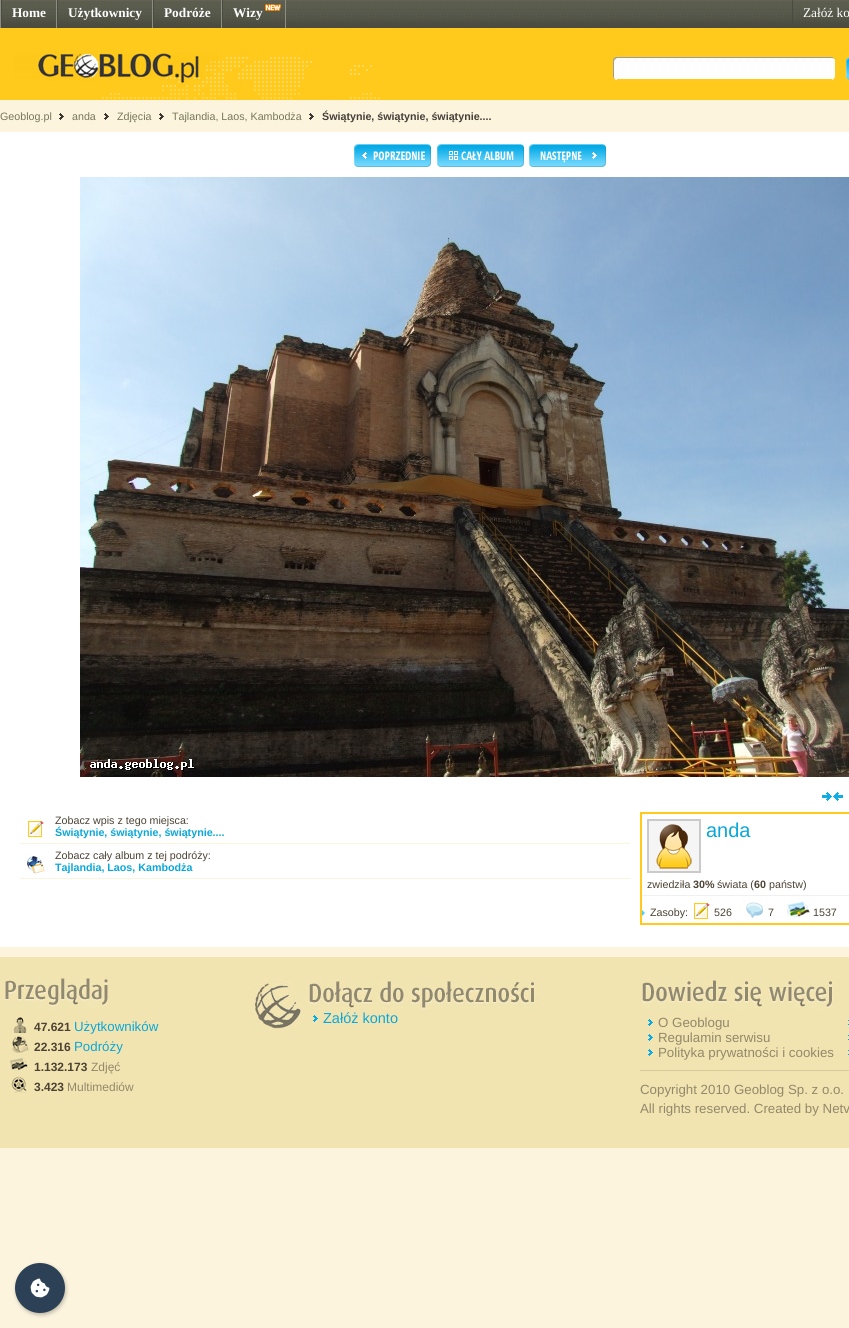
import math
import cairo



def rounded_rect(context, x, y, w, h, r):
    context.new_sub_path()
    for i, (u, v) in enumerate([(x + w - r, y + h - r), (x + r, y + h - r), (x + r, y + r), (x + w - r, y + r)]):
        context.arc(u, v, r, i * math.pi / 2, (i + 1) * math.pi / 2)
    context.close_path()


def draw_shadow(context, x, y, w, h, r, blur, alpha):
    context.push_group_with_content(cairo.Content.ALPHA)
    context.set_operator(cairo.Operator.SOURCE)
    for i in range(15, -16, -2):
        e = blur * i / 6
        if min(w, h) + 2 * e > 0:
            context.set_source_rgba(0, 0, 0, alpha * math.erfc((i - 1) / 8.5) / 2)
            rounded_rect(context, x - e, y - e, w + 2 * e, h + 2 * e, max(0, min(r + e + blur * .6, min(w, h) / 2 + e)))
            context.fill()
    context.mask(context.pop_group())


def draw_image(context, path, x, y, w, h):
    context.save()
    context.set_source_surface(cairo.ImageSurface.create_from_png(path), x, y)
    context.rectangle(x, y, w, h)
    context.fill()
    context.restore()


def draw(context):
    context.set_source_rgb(252 / 255, 244 / 255, 221 / 255)
    context.paint()
    draw_image(context, "images/1.png", 2, 0, 847, 28)
    context.set_source_rgb(140 / 255, 141 / 255, 131 / 255)
    context.rectangle(0, 0, 1, 28)
    context.fill()
    context.rectangle(56, 0, 1, 28)
    context.fill()
    context.set_source_rgb(73 / 255, 74 / 255, 65 / 255)
    context.rectangle(1, 0, 1, 28)
    context.fill()
    context.set_source_rgb(140 / 255, 141 / 255, 131 / 255)
    context.rectangle(152, 0, 1, 28)
    context.fill()
    context.set_source_rgb(73 / 255, 74 / 255, 65 / 255)
    context.rectangle(57, 0, 1, 28)
    context.fill()
    context.set_source_rgb(140 / 255, 141 / 255, 131 / 255)
    context.rectangle(221, 0, 1, 28)
    context.fill()
    context.set_source_rgb(73 / 255, 74 / 255, 65 / 255)
    context.rectangle(153, 0, 1, 28)
    context.fill()
    context.set_source_rgb(140 / 255, 141 / 255, 131 / 255)
    context.rectangle(285, 0, 1, 28)
    context.fill()
    context.set_source_rgb(73 / 255, 74 / 255, 65 / 255)
    context.rectangle(222, 0, 1, 28)
    context.fill()
    draw_image(context, "images/2.png", 265, 4, 16, 7)
    context.rectangle(792, 0, 1, 28)
    context.fill()
    context.set_source_rgb(1, 202 / 255, 28 / 255)
    context.rectangle(0, 28, 849, 72)
    context.fill()
    draw_image(context, "images/3.png", 0, 52, 380, 48)
    draw_image(context, "images/4.png", 613, 56, 4, 25)
    context.set_source_rgb(1, 1, 1)
    context.rectangle(617, 78, 215, 1)
    context.fill()
    draw_image(context, "images/5.png", 617, 56, 215, 22)
    draw_image(context, "images/6.png", 832, 56, 4, 25)
    draw_image(context, "images/7.png", 846, 57, 3, 23)
    draw_image(context, "images/8.png", 59, 113, 5, 7)
    draw_image(context, "images/8.png", 104, 113, 5, 7)
    draw_image(context, "images/8.png", 159, 113, 5, 7)
    draw_image(context, "images/8.png", 309, 113, 5, 7)
    context.rectangle(0, 132, 849, 815)
    context.fill()
    draw_image(context, "images/9.png", 354, 144, 77, 23)
    draw_image(context, "images/10.png", 437, 144, 87, 23)
    draw_image(context, "images/11.png", 529, 144, 77, 23)
    draw_image(context, "images/12.png", 80, 177, 769, 600)
    draw_image(context, "images/13.png", 822, 792, 21, 9)
    context.set_source_rgb(250 / 255, 245 / 255, 223 / 255)
    context.rectangle(20, 843, 610, 1)
    context.fill()
    draw_image(context, "images/14.png", 28, 821, 16, 16)
    context.rectangle(20, 878, 610, 1)
    context.fill()
    draw_image(context, "images/15.png", 27, 856, 18, 18)
    context.rectangle(641, 813, 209, 111)
    context.set_source_rgb(1, 202 / 255, 28 / 255)
    context.stroke()
    context.set_source_rgb(240 / 255, 240 / 255, 240 / 255)
    context.rectangle(642, 895, 207, 1)
    context.fill()
    context.rectangle(648, 820, 52, 52)
    context.set_source_rgb(202 / 255, 202 / 255, 202 / 255)
    context.stroke()
    draw_image(context, "images/16.png", 649, 821, 50, 50)
    draw_image(context, "images/17.png", 642, 910, 3, 6)
    draw_image(context, "images/14.png", 694, 903, 16, 16)
    draw_image(context, "images/18.png", 746, 902, 17, 16)
    draw_image(context, "images/19.png", 787, 901, 23, 17)
    context.set_source_rgb(242 / 255, 228 / 255, 177 / 255)
    context.rectangle(0, 957, 849, 191)
    context.fill()
    draw_image(context, "images/20.png", 252, 979, 52, 52)
    draw_image(context, "images/21.png", 305, 979, 234, 31)
    draw_image(context, "images/22.png", 310, 1013, 9, 12)
    draw_image(context, "images/23.png", 4, 977, 104, 32)
    draw_image(context, "images/24.png", 11, 1017, 16, 16)
    draw_image(context, "images/25.png", 11, 1036, 18, 17)
    draw_image(context, "images/26.png", 10, 1057, 19, 16)
    draw_image(context, "images/27.png", 11, 1076, 16, 17)
    draw_image(context, "images/28.png", 642, 979, 192, 31)
    context.set_source_rgb(215 / 255, 201 / 255, 154 / 255)
    context.rectangle(640, 1070, 209, 1)
    context.fill()
    draw_image(context, "images/22.png", 645, 1017, 9, 12)
    draw_image(context, "images/22.png", 645, 1032, 9, 12)
    draw_image(context, "images/22.png", 645, 1047, 9, 12)
    draw_image(context, "images/29.png", 845, 1017, 4, 12)
    draw_image(context, "images/29.png", 845, 1032, 4, 12)
    draw_image(context, "images/29.png", 845, 1047, 4, 12)
    context.set_source_rgb(0, 0, 0)
    draw_shadow(context, 16, 1265, 50, 50, 25, 2, 0.25)
    context.set_source_rgb(45 / 255, 65 / 255, 86 / 255)
    context.arc(40, 1288, 25, 0, 2 * math.pi)
    context.fill()
    draw_image(context, "images/30.png", 30, 1278, 20, 20)
    context.select_font_face("Liberation Serif", cairo.FontSlant.NORMAL, cairo.FontWeight.BOLD)
    context.set_font_size(13.3)
    context.set_source_rgb(1, 1, 1)
    context.move_to(12, 17)
    context.show_text("Home")
    context.move_to(68, 17)
    context.show_text("Użytkownicy")
    context.move_to(164, 17)
    context.show_text("Podróże")
    context.move_to(233, 17)
    context.show_text("Wizy")
    context.select_font_face("Liberation Serif")
    context.move_to(803, 17)
    context.show_text("Załóż ko")
    context.select_font_face("Liberation Sans")
    context.set_font_size(10.7)
    context.set_source_rgb(118 / 255, 118 / 255, 92 / 255)
    context.move_to(0, 120)
    context.show_text("Geoblog.pl")
    context.move_to(72, 120)
    context.show_text("anda")
    context.move_to(117, 120)
    context.show_text("Zdjęcia")
    context.move_to(172, 120)
    context.show_text("Tajlandia, Laos, Kambodża")
    context.select_font_face("Liberation Sans", cairo.FontSlant.NORMAL, cairo.FontWeight.BOLD)
    context.set_source_rgb(68 / 255, 63 / 255, 57 / 255)
    context.move_to(322, 120)
    context.show_text("Świątynie, świątynie, świątynie....")
    context.select_font_face("Liberation Sans")
    context.set_source_rgb(75 / 255, 66 / 255, 51 / 255)
    context.move_to(55, 824)
    context.show_text("Zobacz wpis z tego miejsca:")
    context.select_font_face("Liberation Sans", cairo.FontSlant.NORMAL, cairo.FontWeight.BOLD)
    context.set_source_rgb(11 / 255, 167 / 255, 216 / 255)
    context.move_to(55, 836)
    context.show_text("Świątynie, świątynie, świątynie....")
    context.select_font_face("Liberation Sans")
    context.set_source_rgb(75 / 255, 66 / 255, 51 / 255)
    context.move_to(55, 859)
    context.show_text("Zobacz cały album z tej podróży:")
    context.select_font_face("Liberation Sans", cairo.FontSlant.NORMAL, cairo.FontWeight.BOLD)
    context.set_source_rgb(11 / 255, 167 / 255, 216 / 255)
    context.move_to(55, 871)
    context.show_text("Tajlandia, Laos, Kambodża")
    context.select_font_face("Liberation Sans")
    context.set_font_size(20)
    context.move_to(706, 837)
    context.show_text("anda")
    context.set_font_size(10.7)
    context.set_source_rgb(75 / 255, 66 / 255, 51 / 255)
    context.move_to(647, 888)
    context.show_text("zwiedziła")
    context.select_font_face("Liberation Sans", cairo.FontSlant.NORMAL, cairo.FontWeight.BOLD)
    context.move_to(693, 888)
    context.show_text("30%")
    context.select_font_face("Liberation Sans")
    context.move_to(717, 888)
    context.show_text("świata (")
    context.select_font_face("Liberation Sans", cairo.FontSlant.NORMAL, cairo.FontWeight.BOLD)
    context.move_to(754, 888)
    context.show_text("60")
    context.select_font_face("Liberation Sans")
    context.move_to(769, 888)
    context.show_text("państw)")
    context.move_to(650, 916)
    context.show_text("Zasoby:")
    context.move_to(714, 916)
    context.show_text("526")
    context.move_to(768, 916)
    context.show_text("7")
    context.move_to(813, 916)
    context.show_text("1537")
    context.set_font_size(14.5)
    context.set_source_rgb(11 / 255, 167 / 255, 216 / 255)
    context.move_to(323, 1023)
    context.show_text("Załóż konto")
    context.select_font_face("Liberation Sans", cairo.FontSlant.NORMAL, cairo.FontWeight.BOLD)
    context.set_font_size(12)
    context.set_source_rgb(75 / 255, 66 / 255, 51 / 255)
    context.move_to(34, 1031)
    context.show_text("47.621")
    context.select_font_face("Liberation Sans")
    context.set_font_size(13.3)
    context.set_source_rgb(11 / 255, 167 / 255, 216 / 255)
    context.move_to(74, 1031)
    context.show_text("Użytkowników")
    context.select_font_face("Liberation Sans", cairo.FontSlant.NORMAL, cairo.FontWeight.BOLD)
    context.set_font_size(12)
    context.set_source_rgb(75 / 255, 66 / 255, 51 / 255)
    context.move_to(34, 1051)
    context.show_text("22.316")
    context.select_font_face("Liberation Sans")
    context.set_font_size(13.3)
    context.set_source_rgb(11 / 255, 167 / 255, 216 / 255)
    context.move_to(74, 1051)
    context.show_text("Podróży")
    context.select_font_face("Liberation Sans", cairo.FontSlant.NORMAL, cairo.FontWeight.BOLD)
    context.set_font_size(12)
    context.set_source_rgb(75 / 255, 66 / 255, 51 / 255)
    context.move_to(34, 1071)
    context.show_text("1.132.173")
    context.select_font_face("Liberation Sans")
    context.set_source_rgb(146 / 255, 136 / 255, 106 / 255)
    context.move_to(91, 1071)
    context.show_text("Zdjęć")
    context.select_font_face("Liberation Sans", cairo.FontSlant.NORMAL, cairo.FontWeight.BOLD)
    context.set_source_rgb(75 / 255, 66 / 255, 51 / 255)
    context.move_to(34, 1091)
    context.show_text("3.423")
    context.select_font_face("Liberation Sans")
    context.set_source_rgb(146 / 255, 136 / 255, 106 / 255)
    context.move_to(67, 1091)
    context.show_text("Multimediów")
    context.set_font_size(13.3)
    context.move_to(658, 1027)
    context.show_text("O Geoblogu")
    context.move_to(658, 1042)
    context.show_text("Regulamin serwisu")
    context.move_to(658, 1057)
    context.show_text("Polityka prywatności i cookies")
    context.move_to(640, 1094)
    context.show_text("Copyright 2010 Geoblog Sp. z o.o.")
    context.move_to(640, 1113)
    context.show_text("All rights reserved. Created by Netv")


surface = cairo.ImageSurface(cairo.Format.RGB24, 849, 1328)
context = cairo.Context(surface)
options = cairo.FontOptions()
options.set_hint_metrics(cairo.HintMetrics.OFF)
options.set_hint_style(cairo.HintStyle.NONE)
context.set_font_options(options)
context.set_miter_limit(4)
draw(context)
surface.write_to_png("out.png")
